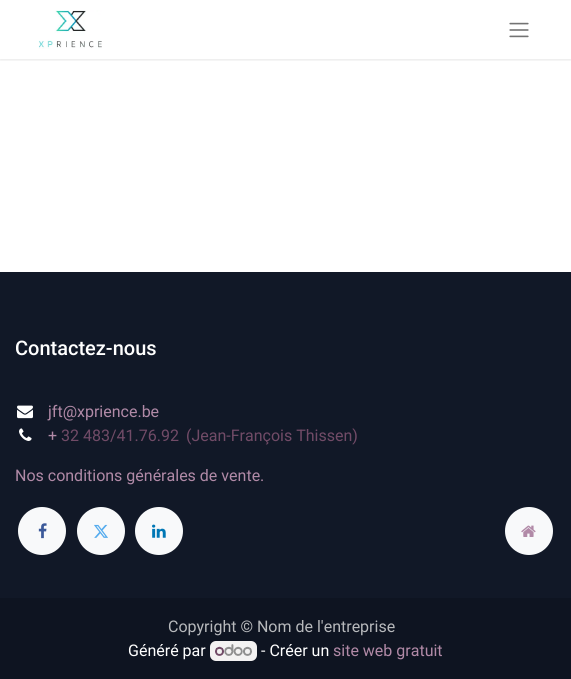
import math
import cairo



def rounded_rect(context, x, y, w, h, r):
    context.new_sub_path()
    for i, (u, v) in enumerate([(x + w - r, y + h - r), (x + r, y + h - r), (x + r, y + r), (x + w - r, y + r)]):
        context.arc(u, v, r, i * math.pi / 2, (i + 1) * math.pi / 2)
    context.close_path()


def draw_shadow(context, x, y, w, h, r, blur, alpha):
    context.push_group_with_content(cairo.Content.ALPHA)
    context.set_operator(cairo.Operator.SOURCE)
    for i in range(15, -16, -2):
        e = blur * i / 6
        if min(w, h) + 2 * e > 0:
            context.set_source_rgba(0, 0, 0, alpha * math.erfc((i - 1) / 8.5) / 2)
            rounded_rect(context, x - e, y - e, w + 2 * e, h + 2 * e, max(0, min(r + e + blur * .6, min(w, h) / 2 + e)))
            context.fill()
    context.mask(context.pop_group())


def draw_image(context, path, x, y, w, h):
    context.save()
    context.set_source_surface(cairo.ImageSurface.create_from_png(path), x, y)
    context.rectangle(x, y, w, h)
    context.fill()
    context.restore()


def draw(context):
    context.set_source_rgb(1, 1, 1)
    context.paint()
    context.save()
    context.rectangle(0, 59, 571, 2)
    context.clip()
    context.set_source_rgb(0, 0, 0)
    draw_shadow(context, 0, 1, 571, 59, 0, 1.5, 0.1)
    context.restore()
    draw_image(context, "images/1.png", 38, 10, 64, 39)
    draw_image(context, "images/2.png", 509, 22, 20, 16)
    context.set_source_rgb(17 / 255, 24 / 255, 39 / 255)
    context.rectangle(0, 272, 571, 326)
    context.fill()
    draw_image(context, "images/3.png", 17, 405, 16, 14)
    draw_image(context, "images/4.png", 19, 428, 13, 13)
    context.set_source_rgb(248 / 255, 249 / 255, 250 / 255)
    context.arc(42, 531, 24, 0, 2 * math.pi)
    context.fill()
    draw_image(context, "images/5.png", 38, 523, 9, 16)
    context.arc(101, 531, 24, 0, 2 * math.pi)
    context.fill()
    draw_image(context, "images/6.png", 94, 524, 14, 14)
    context.arc(159, 531, 24, 0, 2 * math.pi)
    context.fill()
    draw_image(context, "images/7.png", 152, 524, 14, 14)
    context.arc(529, 531, 24, 0, 2 * math.pi)
    context.fill()
    draw_image(context, "images/8.png", 521, 525, 15, 12)
    context.set_source_rgb(14 / 255, 20 / 255, 33 / 255)
    context.rectangle(0, 598, 571, 81)
    context.fill()
    context.set_source_rgb(243 / 255, 242 / 255, 242 / 255)
    rounded_rect(context, 210, 641, 47, 20, 6)
    context.fill()
    draw_image(context, "images/9.png", 215, 644, 37, 12)
    context.select_font_face("Roboto Medium")
    context.set_font_size(20)
    context.set_source_rgb(1, 1, 1)
    context.move_to(15, 355)
    context.show_text("Contactez-nous")
    context.select_font_face("Roboto")
    context.set_font_size(16)
    context.set_source_rgb(177 / 255, 138 / 255, 167 / 255)
    context.move_to(48, 417)
    context.show_text("jft@xprience.be")
    context.move_to(48, 441)
    context.show_text("+")
    context.set_source_rgb(113 / 255, 75 / 255, 103 / 255)
    context.move_to(61, 441)
    context.show_text("32 483/41.76.92")
    context.move_to(186, 441)
    context.show_text("(Jean-François Thissen)")
    context.set_source_rgb(177 / 255, 138 / 255, 167 / 255)
    context.move_to(15, 481)
    context.show_text("Nos conditions générales de vente.")
    context.set_source_rgb(183 / 255, 185 / 255, 188 / 255)
    context.move_to(168, 632)
    context.show_text("Copyright © Nom de l'entreprise")
    context.set_source_rgb(1, 1, 1)
    context.move_to(128, 656)
    context.show_text("Généré par")
    context.move_to(261, 656)
    context.show_text("- Créer un")
    context.set_source_rgb(177 / 255, 138 / 255, 167 / 255)
    context.move_to(333, 656)
    context.show_text("site web gratuit")


surface = cairo.ImageSurface(cairo.Format.RGB24, 571, 679)
context = cairo.Context(surface)
options = cairo.FontOptions()
options.set_hint_metrics(cairo.HintMetrics.OFF)
options.set_hint_style(cairo.HintStyle.NONE)
context.set_font_options(options)
context.set_miter_limit(4)
draw(context)
surface.write_to_png("out.png")
